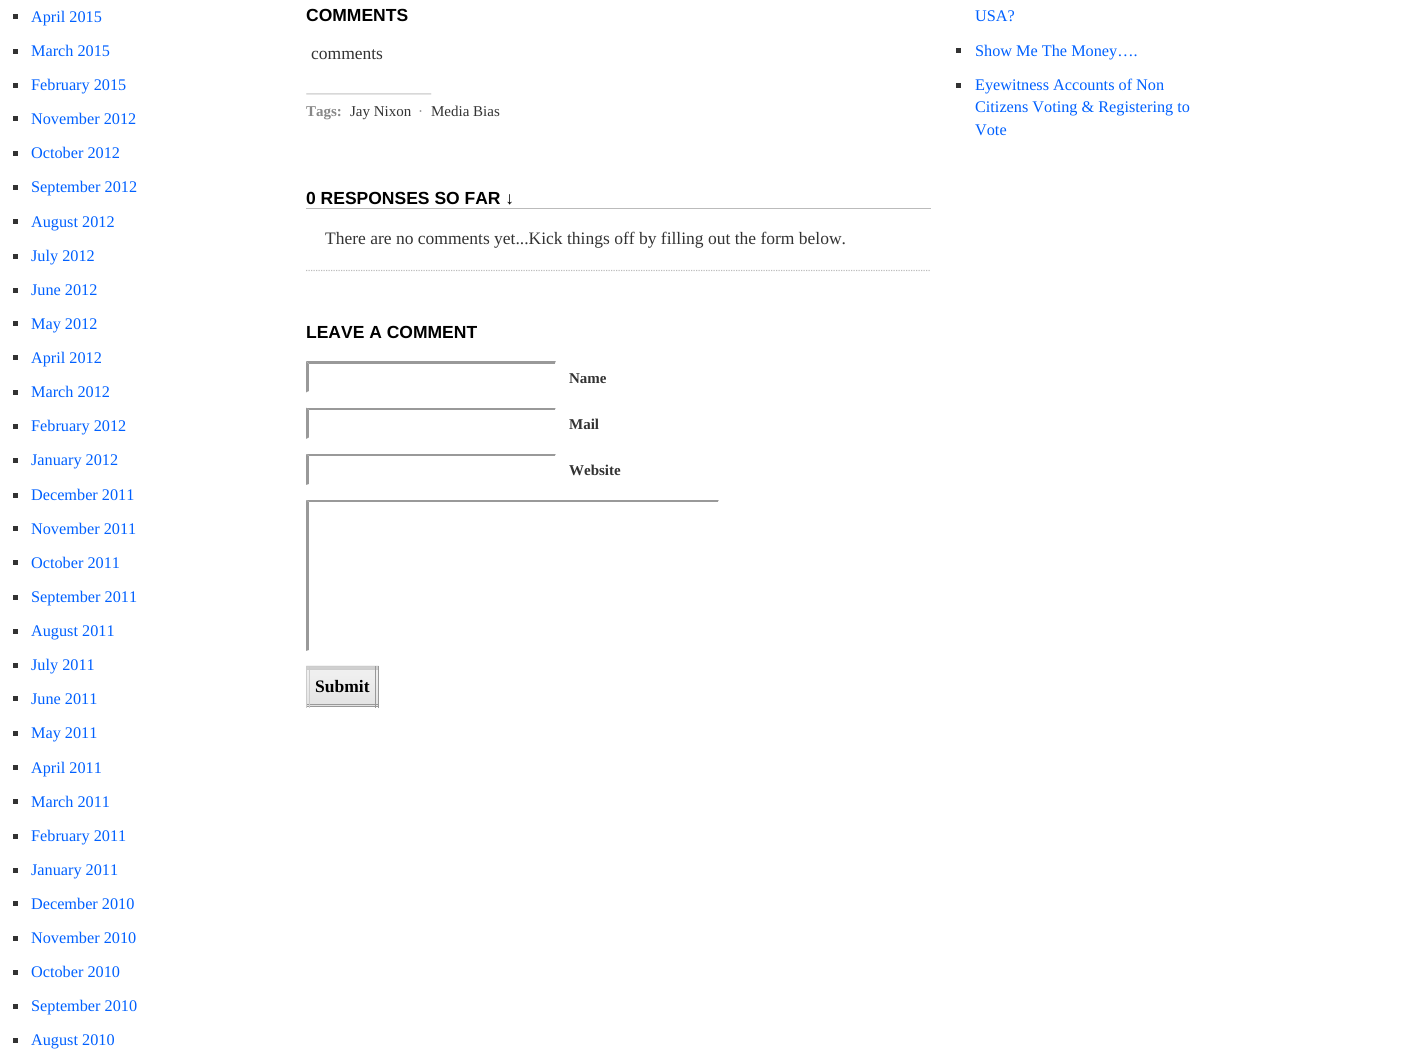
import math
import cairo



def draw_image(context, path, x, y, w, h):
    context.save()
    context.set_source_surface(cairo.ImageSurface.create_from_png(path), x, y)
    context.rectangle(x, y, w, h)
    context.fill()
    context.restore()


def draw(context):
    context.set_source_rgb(1, 1, 1)
    context.paint()
    context.set_source_rgb(51 / 255, 51 / 255, 51 / 255)
    context.rectangle(13, 14, 5, 5)
    context.fill()
    context.rectangle(13, 49, 5, 5)
    context.fill()
    context.rectangle(13, 83, 5, 5)
    context.fill()
    context.rectangle(13, 116, 5, 5)
    context.fill()
    context.rectangle(13, 151, 5, 5)
    context.fill()
    context.rectangle(13, 185, 5, 5)
    context.fill()
    context.rectangle(13, 219, 5, 5)
    context.fill()
    context.rectangle(13, 254, 5, 5)
    context.fill()
    context.rectangle(13, 288, 5, 5)
    context.fill()
    context.rectangle(13, 321, 5, 5)
    context.fill()
    context.rectangle(13, 355, 5, 5)
    context.fill()
    context.rectangle(13, 390, 5, 5)
    context.fill()
    context.rectangle(13, 424, 5, 5)
    context.fill()
    context.rectangle(13, 458, 5, 5)
    context.fill()
    context.rectangle(13, 493, 5, 5)
    context.fill()
    context.rectangle(13, 526, 5, 5)
    context.fill()
    context.rectangle(13, 560, 5, 5)
    context.fill()
    context.rectangle(13, 595, 5, 5)
    context.fill()
    context.rectangle(13, 629, 5, 5)
    context.fill()
    context.rectangle(13, 663, 5, 5)
    context.fill()
    context.rectangle(13, 696, 5, 5)
    context.fill()
    context.rectangle(13, 731, 5, 5)
    context.fill()
    context.rectangle(13, 765, 5, 5)
    context.fill()
    context.rectangle(13, 799, 5, 5)
    context.fill()
    context.rectangle(13, 834, 5, 5)
    context.fill()
    context.rectangle(13, 868, 5, 5)
    context.fill()
    context.rectangle(13, 901, 5, 5)
    context.fill()
    context.rectangle(13, 936, 5, 5)
    context.fill()
    context.rectangle(13, 970, 5, 5)
    context.fill()
    context.rectangle(13, 1004, 5, 5)
    context.fill()
    context.rectangle(13, 1038, 5, 5)
    context.fill()
    draw_image(context, "images/1.png", 306, 93, 126, 2)
    context.set_source_rgb(187 / 255, 187 / 255, 187 / 255)
    context.rectangle(306, 208, 625, 1)
    context.fill()
    context.new_path()
    context.move_to(306, 270.5)
    context.line_to(931, 270.5)
    context.set_line_width(1.2)
    context.set_dash([1.25, 1.25])
    context.stroke()
    context.set_source_rgb(153 / 255, 153 / 255, 153 / 255)
    context.new_path()
    context.move_to(306, 361)
    context.line_to(556, 361)
    context.line_to(555, 364)
    context.line_to(309, 364)
    context.close_path()
    context.fill()
    context.set_source_rgb(1, 1, 1)
    context.new_path()
    context.move_to(556, 361)
    context.line_to(556, 392.5)
    context.line_to(555, 391)
    context.line_to(555, 364)
    context.close_path()
    context.fill()
    context.set_source_rgb(153 / 255, 153 / 255, 153 / 255)
    context.new_path()
    context.move_to(306, 392.5)
    context.line_to(306, 361)
    context.line_to(309, 364)
    context.line_to(309, 391)
    context.close_path()
    context.fill()
    context.new_path()
    context.move_to(306, 408)
    context.line_to(556, 408)
    context.line_to(555, 410)
    context.line_to(309, 410)
    context.close_path()
    context.fill()
    context.set_source_rgb(1, 1, 1)
    context.new_path()
    context.move_to(556, 407.5)
    context.line_to(556, 439)
    context.line_to(555, 437.5)
    context.line_to(555, 410)
    context.close_path()
    context.fill()
    context.set_source_rgb(153 / 255, 153 / 255, 153 / 255)
    context.new_path()
    context.move_to(306, 439)
    context.line_to(306, 407.5)
    context.line_to(309, 410)
    context.line_to(309, 437.5)
    context.close_path()
    context.fill()
    context.new_path()
    context.move_to(306, 454)
    context.line_to(556, 454)
    context.line_to(555, 456)
    context.line_to(309, 456)
    context.close_path()
    context.fill()
    context.set_source_rgb(1, 1, 1)
    context.new_path()
    context.move_to(556, 454)
    context.line_to(556, 485)
    context.line_to(555, 484)
    context.line_to(555, 456)
    context.close_path()
    context.fill()
    context.set_source_rgb(153 / 255, 153 / 255, 153 / 255)
    context.new_path()
    context.move_to(306, 485)
    context.line_to(306, 454)
    context.line_to(309, 456)
    context.line_to(309, 484)
    context.close_path()
    context.fill()
    context.new_path()
    context.move_to(306, 500)
    context.line_to(719, 500)
    context.line_to(718, 502)
    context.line_to(309, 502)
    context.close_path()
    context.fill()
    context.set_source_rgb(1, 1, 1)
    context.new_path()
    context.move_to(719, 500)
    context.line_to(719, 651)
    context.line_to(718, 650)
    context.line_to(718, 502)
    context.close_path()
    context.fill()
    context.set_source_rgb(153 / 255, 153 / 255, 153 / 255)
    context.new_path()
    context.move_to(306, 651)
    context.line_to(306, 500)
    context.line_to(309, 502)
    context.line_to(309, 650)
    context.close_path()
    context.fill()
    draw_image(context, "images/2.png", 306, 665, 73, 41)
    context.set_source_rgb(204 / 255, 204 / 255, 204 / 255)
    context.rectangle(306, 666, 73, 1)
    context.fill()
    context.rectangle(306, 669, 73, 1)
    context.fill()
    context.set_source_rgb(153 / 255, 153 / 255, 153 / 255)
    context.rectangle(375, 666, 1, 42)
    context.fill()
    context.rectangle(378, 666, 1, 42)
    context.fill()
    context.rectangle(306, 704, 73, 1)
    context.fill()
    context.rectangle(306, 706, 73, 1)
    context.fill()
    context.set_source_rgb(204 / 255, 204 / 255, 204 / 255)
    context.rectangle(306, 666, 1, 42)
    context.fill()
    context.rectangle(309, 666, 1, 42)
    context.fill()
    context.set_source_rgb(51 / 255, 51 / 255, 51 / 255)
    context.rectangle(956, 48, 5, 5)
    context.fill()
    context.rectangle(956, 83, 5, 5)
    context.fill()
    context.select_font_face("Liberation Serif")
    context.set_font_size(16.25)
    context.set_source_rgb(0, 96 / 255, 1)
    context.move_to(31, 22)
    context.show_text("April 2015")
    context.move_to(31, 56)
    context.show_text("March 2015")
    context.move_to(31, 90)
    context.show_text("February 2015")
    context.move_to(31, 124)
    context.show_text("November 2012")
    context.move_to(31, 158)
    context.show_text("October 2012")
    context.move_to(31, 192)
    context.show_text("September 2012")
    context.move_to(31, 227)
    context.show_text("August 2012")
    context.move_to(31, 261)
    context.show_text("July 2012")
    context.move_to(31, 295)
    context.show_text("June 2012")
    context.move_to(31, 329)
    context.show_text("May 2012")
    context.move_to(31, 363)
    context.show_text("April 2012")
    context.move_to(31, 397)
    context.show_text("March 2012")
    context.move_to(31, 431)
    context.show_text("February 2012")
    context.move_to(31, 465)
    context.show_text("January 2012")
    context.move_to(31, 500)
    context.show_text("December 2011")
    context.move_to(31, 534)
    context.show_text("November 2011")
    context.move_to(31, 568)
    context.show_text("October 2011")
    context.move_to(31, 602)
    context.show_text("September 2011")
    context.move_to(31, 636)
    context.show_text("August 2011")
    context.move_to(31, 670)
    context.show_text("July 2011")
    context.move_to(31, 704)
    context.show_text("June 2011")
    context.move_to(31, 738)
    context.show_text("May 2011")
    context.move_to(31, 773)
    context.show_text("April 2011")
    context.move_to(31, 807)
    context.show_text("March 2011")
    context.move_to(31, 841)
    context.show_text("February 2011")
    context.move_to(31, 875)
    context.show_text("January 2011")
    context.move_to(31, 909)
    context.show_text("December 2010")
    context.move_to(31, 943)
    context.show_text("November 2010")
    context.move_to(31, 977)
    context.show_text("October 2010")
    context.move_to(31, 1011)
    context.show_text("September 2010")
    context.move_to(31, 1045)
    context.show_text("August 2010")
    context.select_font_face("Liberation Sans", cairo.FontSlant.NORMAL, cairo.FontWeight.BOLD)
    context.set_font_size(17.5)
    context.set_source_rgb(0, 0, 0)
    context.move_to(306, 21)
    context.show_text("COMMENTS")
    context.select_font_face("Liberation Serif")
    context.set_source_rgb(51 / 255, 51 / 255, 51 / 255)
    context.move_to(311, 59)
    context.show_text("comments")
    context.select_font_face("Liberation Serif", cairo.FontSlant.NORMAL, cairo.FontWeight.BOLD)
    context.set_font_size(15)
    context.set_source_rgb(136 / 255, 136 / 255, 136 / 255)
    context.move_to(306, 116)
    context.show_text("Tags:")
    context.select_font_face("Liberation Serif")
    context.set_source_rgb(51 / 255, 51 / 255, 51 / 255)
    context.move_to(350, 116)
    context.show_text("Jay Nixon")
    context.set_source_rgb(136 / 255, 136 / 255, 136 / 255)
    context.move_to(418, 116)
    context.show_text("·")
    context.set_source_rgb(51 / 255, 51 / 255, 51 / 255)
    context.move_to(431, 116)
    context.show_text("Media Bias")
    context.select_font_face("Liberation Sans", cairo.FontSlant.NORMAL, cairo.FontWeight.BOLD)
    context.set_font_size(17.5)
    context.set_source_rgb(0, 0, 0)
    context.move_to(306, 204)
    context.show_text("0 RESPONSES SO FAR ↓")
    context.select_font_face("Liberation Serif")
    context.set_source_rgb(51 / 255, 51 / 255, 51 / 255)
    context.move_to(325, 244)
    context.show_text("There are no comments yet...Kick things off by filling out the form below.")
    context.select_font_face("Liberation Sans", cairo.FontSlant.NORMAL, cairo.FontWeight.BOLD)
    context.set_source_rgb(0, 0, 0)
    context.move_to(306, 338)
    context.show_text("LEAVE A COMMENT")
    context.select_font_face("Liberation Serif", cairo.FontSlant.NORMAL, cairo.FontWeight.BOLD)
    context.set_font_size(15)
    context.set_source_rgb(51 / 255, 51 / 255, 51 / 255)
    context.move_to(569, 383)
    context.show_text("Name")
    context.move_to(569, 429)
    context.show_text("Mail")
    context.move_to(569, 475)
    context.show_text("Website")
    context.set_font_size(17.5)
    context.set_source_rgb(0, 0, 0)
    context.move_to(315, 692)
    context.show_text("Submit")
    context.select_font_face("Liberation Serif")
    context.set_font_size(16.25)
    context.set_source_rgb(0, 96 / 255, 1)
    context.move_to(975, 21)
    context.show_text("USA?")
    context.move_to(975, 56)
    context.show_text("Show Me The Money….")
    context.move_to(975, 90)
    context.show_text("Eyewitness Accounts of Non")
    context.move_to(975, 112)
    context.show_text("Citizens Voting & Registering to")
    context.move_to(975, 135)
    context.show_text("Vote")


surface = cairo.ImageSurface(cairo.Format.RGB24, 1421, 1057)
context = cairo.Context(surface)
options = cairo.FontOptions()
options.set_hint_metrics(cairo.HintMetrics.OFF)
options.set_hint_style(cairo.HintStyle.NONE)
context.set_font_options(options)
context.set_miter_limit(4)
draw(context)
surface.write_to_png("out.png")
